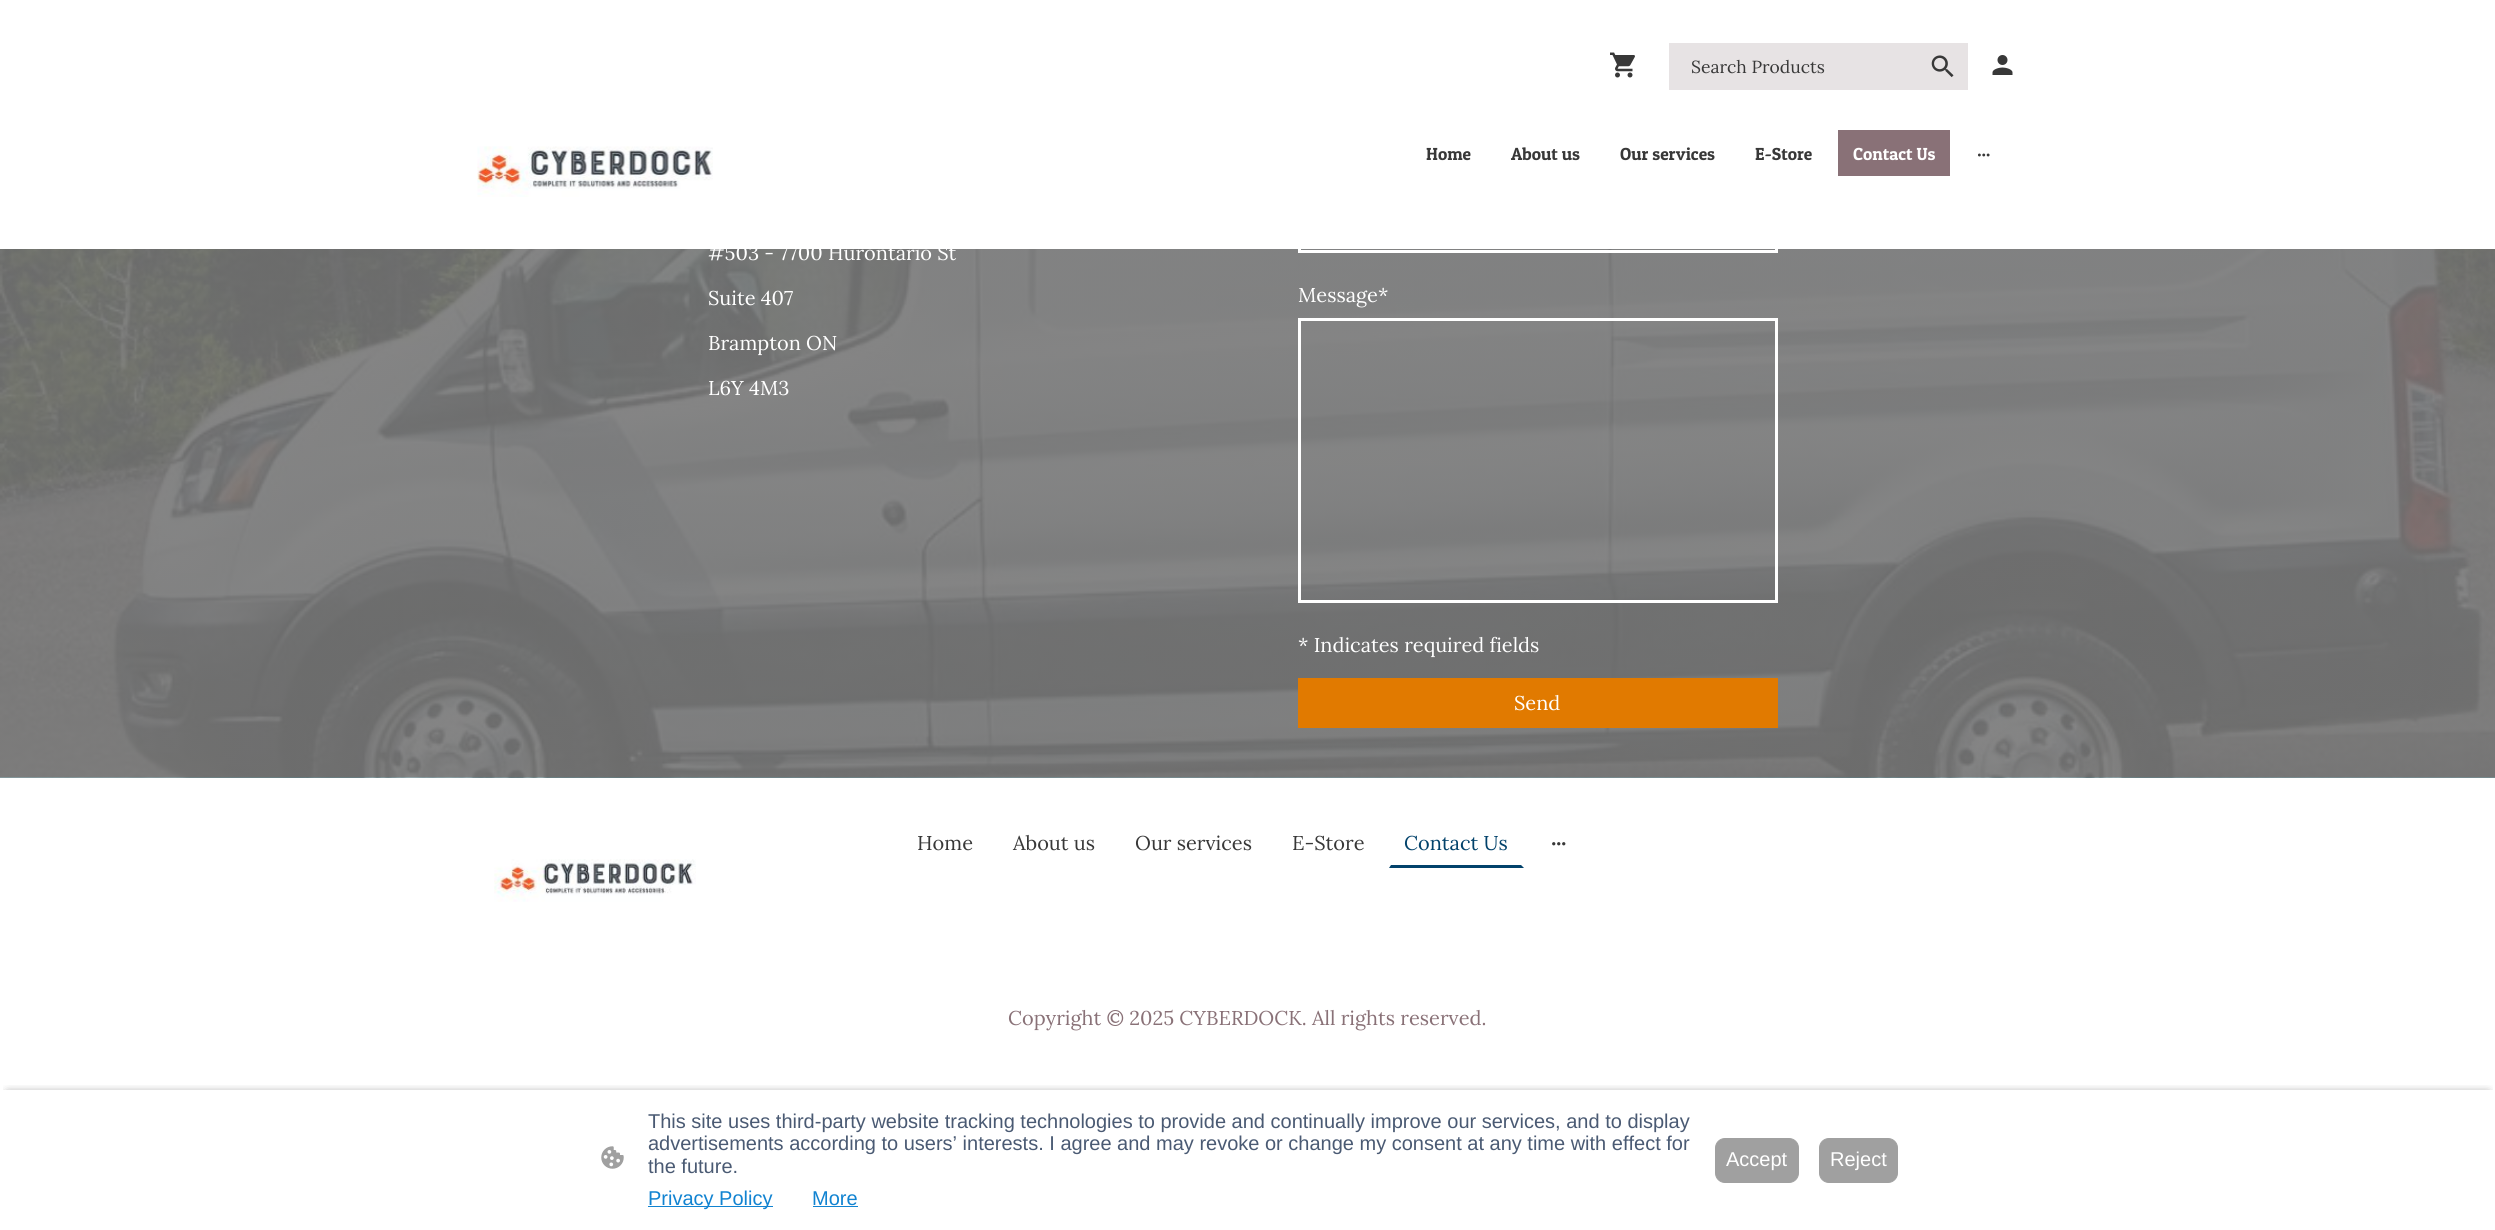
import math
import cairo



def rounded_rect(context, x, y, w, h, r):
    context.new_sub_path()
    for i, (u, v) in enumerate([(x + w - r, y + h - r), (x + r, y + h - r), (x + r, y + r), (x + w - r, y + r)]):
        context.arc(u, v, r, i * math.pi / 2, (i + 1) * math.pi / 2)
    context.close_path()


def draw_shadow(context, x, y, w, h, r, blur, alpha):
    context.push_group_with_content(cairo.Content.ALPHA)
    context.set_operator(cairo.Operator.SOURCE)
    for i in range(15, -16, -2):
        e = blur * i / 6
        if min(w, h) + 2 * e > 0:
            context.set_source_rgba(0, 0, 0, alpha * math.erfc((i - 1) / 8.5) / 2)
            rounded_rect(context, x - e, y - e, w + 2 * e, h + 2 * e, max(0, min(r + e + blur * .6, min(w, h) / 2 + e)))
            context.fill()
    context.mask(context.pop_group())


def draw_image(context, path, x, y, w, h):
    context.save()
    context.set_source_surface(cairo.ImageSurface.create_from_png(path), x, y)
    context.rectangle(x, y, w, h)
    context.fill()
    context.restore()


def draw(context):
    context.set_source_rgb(1, 1, 1)
    context.paint()
    draw_image(context, "images/1.png", 1610, 52, 25, 26)
    context.set_source_rgb(231 / 255, 227 / 255, 228 / 255)
    context.rectangle(1669, 43, 299, 47)
    context.fill()
    draw_image(context, "images/2.png", 1931, 55, 23, 23)
    draw_image(context, "images/3.png", 1992, 55, 21, 20)
    draw_image(context, "images/4.png", 477, 146, 236, 51)
    context.set_source_rgb(137 / 255, 113 / 255, 119 / 255)
    context.rectangle(1838, 130, 112, 46)
    context.fill()
    draw_image(context, "images/5.png", 1978, 153, 12, 4)
    context.set_source_rgb(123 / 255, 156 / 255, 164 / 255)
    context.rectangle(0, 777, 2495, 1)
    context.fill()
    draw_image(context, "images/6.png", 0, 249, 2495, 529)
    context.rectangle(1299.5, 194.5, 477, 57)
    context.set_source_rgb(1, 1, 1)
    context.set_line_width(3)
    context.stroke()
    context.rectangle(1299.5, 319.5, 477, 282)
    context.stroke()
    context.set_source_rgb(225 / 255, 122 / 255, 0)
    context.rectangle(1298, 678, 480, 50)
    context.fill()
    context.set_source_rgb(2 / 255, 66 / 255, 107 / 255)
    context.new_path()
    context.move_to(1524, 868)
    context.line_to(1389, 868)
    context.line_to(1391, 865)
    context.line_to(1521, 865)
    context.close_path()
    context.fill()
    draw_image(context, "images/7.png", 1552, 842, 14, 4)
    draw_image(context, "images/8.png", 494, 859, 202, 43)
    context.save()
    context.rectangle(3, 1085, 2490, 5)
    context.clip()
    context.set_source_rgb(0, 0, 0)
    draw_shadow(context, 8, 1094, 2480, 125, 0, 5, 0.63)
    context.restore()
    draw_image(context, "images/9.png", 601, 1146, 23, 23)
    context.set_source_rgb(17 / 255, 131 / 255, 209 / 255)
    context.rectangle(648, 1206, 125, 1)
    context.fill()
    context.rectangle(813, 1206, 45, 1)
    context.fill()
    context.set_source_rgb(160 / 255, 160 / 255, 160 / 255)
    rounded_rect(context, 1715.5, 1138.5, 83, 44, 9.5)
    context.fill_preserve()
    context.set_line_width(1)
    context.stroke()
    rounded_rect(context, 1819.5, 1138.5, 78, 44, 9.5)
    context.fill_preserve()
    context.stroke()
    context.select_font_face("Lora")
    context.set_font_size(17.5)
    context.set_source_rgb(56 / 255, 56 / 255, 56 / 255)
    context.move_to(1691, 73)
    context.show_text("Search Products")
    context.select_font_face("Patua One")
    context.move_to(1426, 160)
    context.show_text("Home")
    context.move_to(1511, 160)
    context.show_text("About us")
    context.move_to(1620, 160)
    context.show_text("Our services")
    context.move_to(1755, 160)
    context.show_text("E-Store")
    context.set_source_rgb(1, 1, 1)
    context.move_to(1853, 160)
    context.show_text("Contact Us")
    context.select_font_face("Lora")
    context.set_font_size(20)
    context.move_to(708, 260)
    context.show_text("#503 - 7700 Hurontario St")
    context.move_to(708, 305)
    context.show_text("Suite 407")
    context.move_to(708, 350)
    context.show_text("Brampton ON")
    context.move_to(708, 395)
    context.show_text("L6Y 4M3")
    context.move_to(1298, 302)
    context.show_text("Message*")
    context.move_to(1298, 652)
    context.show_text("* Indicates required fields")
    context.move_to(1514, 710)
    context.show_text("Send")
    context.set_source_rgb(56 / 255, 56 / 255, 56 / 255)
    context.move_to(917, 850)
    context.show_text("Home")
    context.move_to(1013, 850)
    context.show_text("About us")
    context.move_to(1135, 850)
    context.show_text("Our services")
    context.move_to(1292, 850)
    context.show_text("E-Store")
    context.set_source_rgb(2 / 255, 66 / 255, 107 / 255)
    context.move_to(1404, 850)
    context.show_text("Contact Us")
    context.set_source_rgb(137 / 255, 113 / 255, 119 / 255)
    context.move_to(1008, 1025)
    context.show_text("Copyright © 2025 CYBERDOCK. All rights reserved.")
    context.select_font_face("Liberation Sans")
    context.set_source_rgb(74 / 255, 90 / 255, 115 / 255)
    context.move_to(648, 1128)
    context.show_text("This site uses third-party website tracking technologies to provide and continually improve our services, and to display")
    context.move_to(648, 1150)
    context.show_text("advertisements according to users’ interests. I agree and may revoke or change my consent at any time with effect for")
    context.move_to(648, 1173)
    context.show_text("the future.")
    context.set_source_rgb(17 / 255, 131 / 255, 209 / 255)
    context.move_to(648, 1205)
    context.show_text("Privacy Policy")
    context.move_to(812, 1205)
    context.show_text("More")
    context.set_source_rgb(1, 1, 1)
    context.move_to(1726, 1166)
    context.show_text("Accept")
    context.move_to(1830, 1166)
    context.show_text("Reject")


surface = cairo.ImageSurface(cairo.Format.RGB24, 2495, 1230)
context = cairo.Context(surface)
options = cairo.FontOptions()
options.set_hint_metrics(cairo.HintMetrics.OFF)
options.set_hint_style(cairo.HintStyle.NONE)
context.set_font_options(options)
context.set_miter_limit(4)
draw(context)
surface.write_to_png("out.png")
